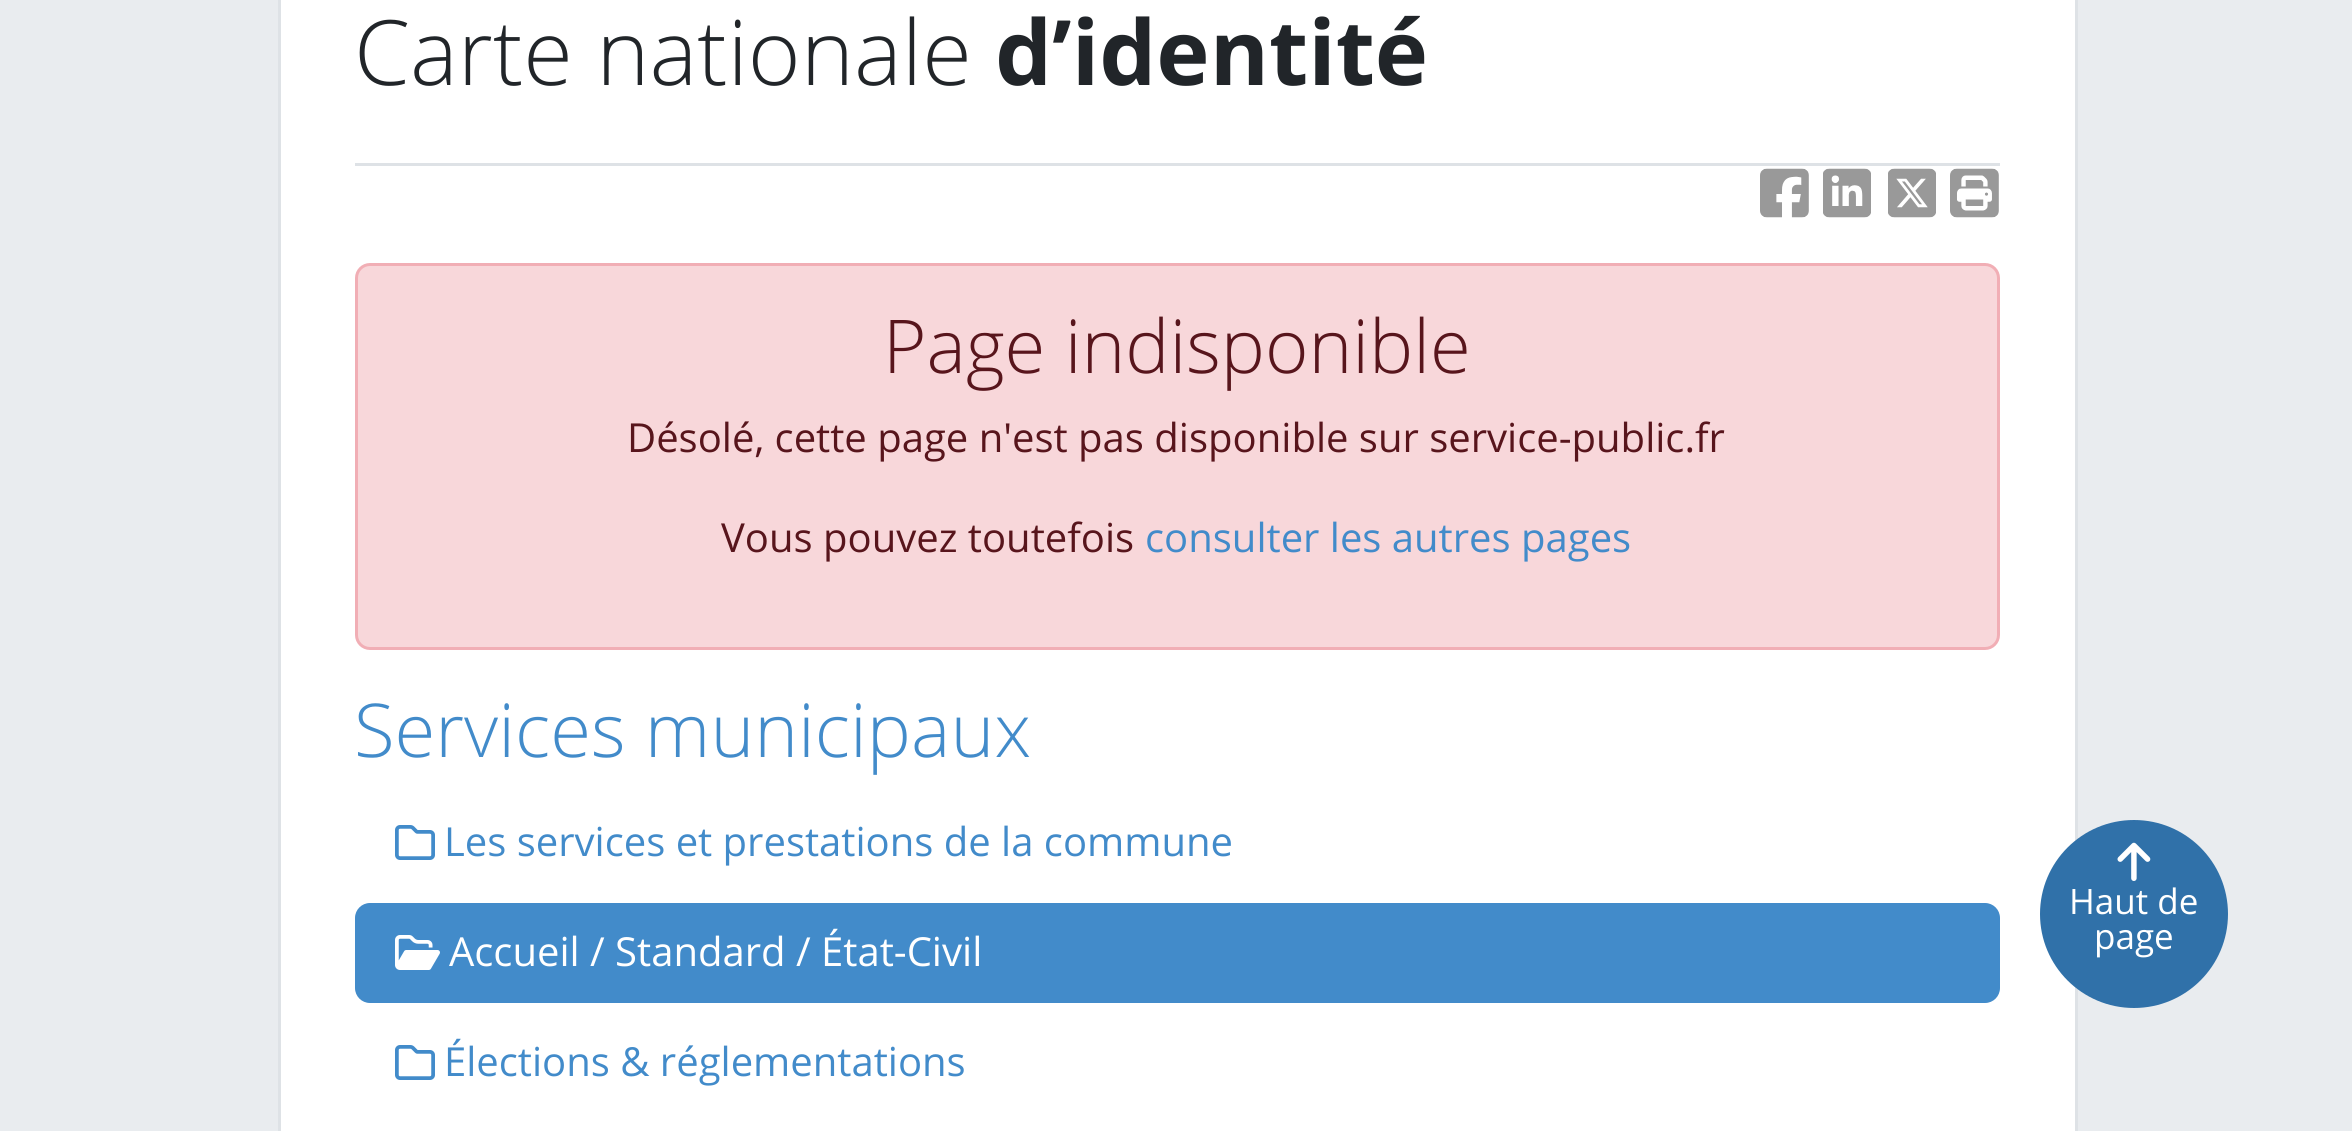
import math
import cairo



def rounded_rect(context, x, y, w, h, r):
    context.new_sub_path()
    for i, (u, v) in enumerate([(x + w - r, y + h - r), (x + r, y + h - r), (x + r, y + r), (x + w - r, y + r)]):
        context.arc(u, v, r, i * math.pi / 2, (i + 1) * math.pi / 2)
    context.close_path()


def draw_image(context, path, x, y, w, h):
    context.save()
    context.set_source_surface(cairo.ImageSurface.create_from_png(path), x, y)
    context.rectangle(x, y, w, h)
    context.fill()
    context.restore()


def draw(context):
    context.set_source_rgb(233 / 255, 236 / 255, 239 / 255)
    context.paint()
    context.set_source_rgb(1, 1, 1)
    context.rectangle(281, 0, 1794, 1131)
    context.fill()
    context.set_source_rgb(222 / 255, 226 / 255, 230 / 255)
    context.rectangle(2075, 0, 3, 1131)
    context.fill()
    context.rectangle(278, 0, 3, 1131)
    context.fill()
    context.rectangle(355, 163, 1645, 3)
    context.fill()
    draw_image(context, "images/1.png", 1760, 168, 49, 50)
    draw_image(context, "images/2.png", 1823, 168, 48, 50)
    draw_image(context, "images/3.png", 1888, 168, 48, 50)
    draw_image(context, "images/4.png", 1950, 168, 49, 50)
    context.set_source_rgb(248 / 255, 215 / 255, 218 / 255)
    rounded_rect(context, 356.5, 264.5, 1642, 384, 13.5)
    context.fill_preserve()
    context.set_source_rgb(241 / 255, 174 / 255, 181 / 255)
    context.set_line_width(3)
    context.stroke()
    draw_image(context, "images/5.png", 395, 825, 40, 35)
    context.set_source_rgb(66 / 255, 139 / 255, 202 / 255)
    rounded_rect(context, 355, 903, 1645, 100, 15)
    context.fill()
    draw_image(context, "images/6.png", 395, 935, 45, 35)
    draw_image(context, "images/5.png", 395, 1045, 40, 35)
    context.set_source_rgb(48 / 255, 113 / 255, 169 / 255)
    context.arc(2134, 914, 94, 0, 2 * math.pi)
    context.fill()
    draw_image(context, "images/7.png", 2117, 842, 34, 39)
    context.select_font_face("Open Sans Light")
    context.set_font_size(90.25)
    context.set_source_rgb(33 / 255, 37 / 255, 41 / 255)
    context.move_to(354, 85)
    context.show_text("Carte nationale")
    context.select_font_face("Open Sans", cairo.FontSlant.NORMAL, cairo.FontWeight.BOLD)
    context.move_to(995, 85)
    context.show_text("d’identité")
    context.select_font_face("Open Sans Light")
    context.set_font_size(74.25)
    context.set_source_rgb(88 / 255, 21 / 255, 28 / 255)
    context.move_to(883, 373)
    context.show_text("Page indisponible")
    context.select_font_face("Open Sans")
    context.set_font_size(40)
    context.move_to(627, 452)
    context.show_text("Désolé, cette page n'est pas disponible sur service-public.fr")
    context.move_to(721, 552)
    context.show_text("Vous pouvez toutefois")
    context.set_source_rgb(66 / 255, 139 / 255, 202 / 255)
    context.move_to(1145, 552)
    context.show_text("consulter les autres pages")
    context.select_font_face("Open Sans Light")
    context.set_font_size(74.25)
    context.move_to(354, 757)
    context.show_text("Services municipaux")
    context.select_font_face("Open Sans")
    context.set_font_size(40)
    context.move_to(444, 856)
    context.show_text("Les services et prestations de la commune")
    context.set_source_rgb(1, 1, 1)
    context.move_to(449, 966)
    context.show_text("Accueil / Standard / État-Civil")
    context.set_source_rgb(66 / 255, 139 / 255, 202 / 255)
    context.move_to(444, 1076)
    context.show_text("Élections & réglementations")
    context.set_font_size(35)
    context.set_source_rgb(1, 1, 1)
    context.move_to(2069, 914)
    context.show_text("Haut de")
    context.move_to(2094, 949)
    context.show_text("page")


surface = cairo.ImageSurface(cairo.Format.RGB24, 2352, 1131)
context = cairo.Context(surface)
options = cairo.FontOptions()
options.set_hint_metrics(cairo.HintMetrics.OFF)
options.set_hint_style(cairo.HintStyle.NONE)
context.set_font_options(options)
context.set_miter_limit(4)
draw(context)
surface.write_to_png("out.png")
